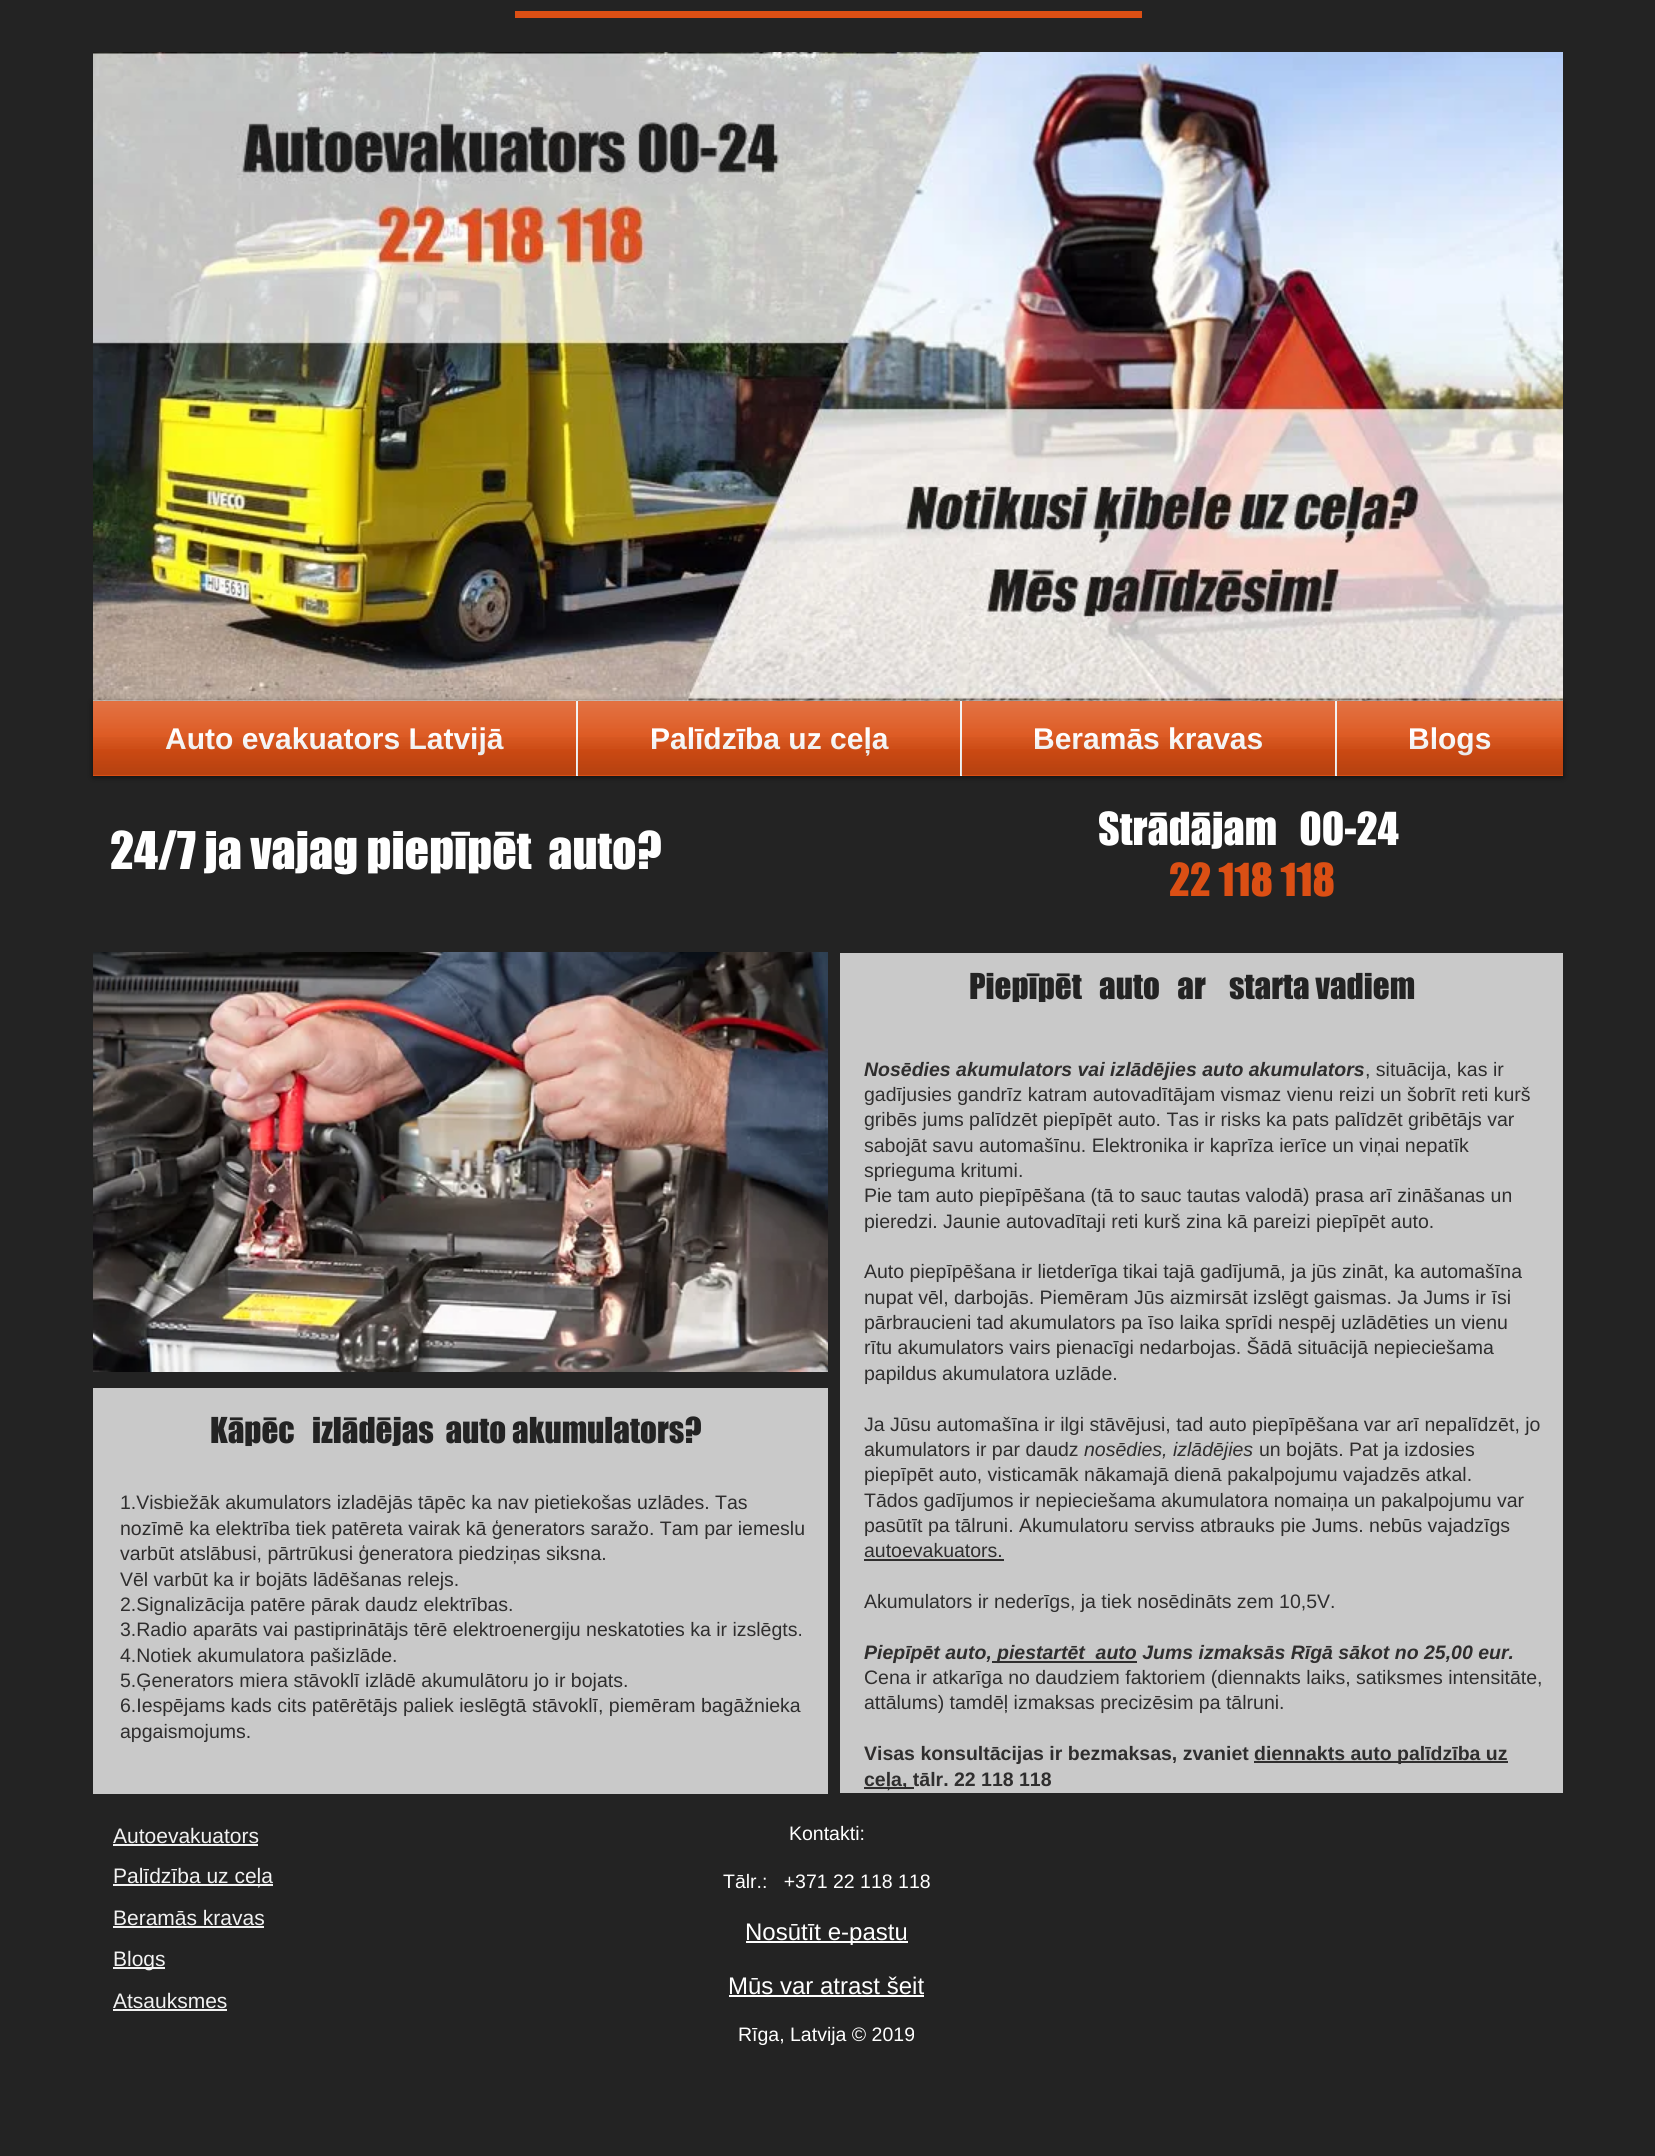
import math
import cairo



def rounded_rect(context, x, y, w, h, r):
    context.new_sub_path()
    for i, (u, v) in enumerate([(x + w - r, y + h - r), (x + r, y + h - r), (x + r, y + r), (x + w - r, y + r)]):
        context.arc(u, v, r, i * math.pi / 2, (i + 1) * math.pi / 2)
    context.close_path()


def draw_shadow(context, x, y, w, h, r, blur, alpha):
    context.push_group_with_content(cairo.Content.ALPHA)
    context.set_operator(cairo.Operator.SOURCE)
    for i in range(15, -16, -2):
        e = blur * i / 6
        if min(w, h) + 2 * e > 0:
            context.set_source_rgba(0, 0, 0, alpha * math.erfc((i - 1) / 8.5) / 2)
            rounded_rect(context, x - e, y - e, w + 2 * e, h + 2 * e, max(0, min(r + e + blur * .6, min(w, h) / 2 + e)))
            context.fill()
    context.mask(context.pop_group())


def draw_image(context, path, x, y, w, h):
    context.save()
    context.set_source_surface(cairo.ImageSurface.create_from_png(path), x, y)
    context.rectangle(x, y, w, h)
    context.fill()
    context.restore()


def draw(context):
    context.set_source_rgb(35 / 255, 35 / 255, 35 / 255)
    context.paint()
    context.set_source_rgb(219 / 255, 79 / 255, 20 / 255)
    context.rectangle(515, 11, 627, 7)
    context.fill()
    draw_image(context, "images/1.png", 93, 52, 1470, 649)
    context.set_source_rgb(0, 0, 0)
    draw_shadow(context, 93, 702, 1470, 75, 0, 3, 0.6)
    draw_image(context, "images/2.png", 93, 700, 1470, 1)
    context.set_source_rgb(219 / 255, 79 / 255, 20 / 255)
    context.rectangle(93, 701, 483, 75)
    context.fill()
    context.rectangle(578, 701, 382, 75)
    context.fill()
    context.set_source_rgb(242 / 255, 242 / 255, 242 / 255)
    context.rectangle(576, 701, 2, 75)
    context.fill()
    context.set_source_rgb(219 / 255, 79 / 255, 20 / 255)
    context.rectangle(962, 701, 373, 75)
    context.fill()
    context.set_source_rgb(242 / 255, 242 / 255, 242 / 255)
    context.rectangle(960, 701, 2, 75)
    context.fill()
    context.set_source_rgb(219 / 255, 79 / 255, 20 / 255)
    context.rectangle(1337, 701, 226, 75)
    context.fill()
    context.set_source_rgb(242 / 255, 242 / 255, 242 / 255)
    context.rectangle(1335, 701, 2, 75)
    context.fill()
    draw_image(context, "images/11.png", 93, 952, 735, 420)
    context.set_source_rgb(201 / 255, 201 / 255, 201 / 255)
    context.rectangle(840, 953, 723, 840)
    context.fill()
    context.set_source_rgb(47 / 255, 46 / 255, 46 / 255)
    context.rectangle(864, 1559, 140, 2)
    context.fill()
    context.rectangle(992, 1661, 145, 2)
    context.fill()
    context.rectangle(1254, 1761, 254, 2)
    context.fill()
    context.rectangle(864, 1787, 50, 2)
    context.fill()
    context.set_source_rgb(201 / 255, 201 / 255, 201 / 255)
    context.rectangle(93, 1388, 735, 406)
    context.fill()
    context.set_source_rgb(242 / 255, 242 / 255, 242 / 255)
    context.rectangle(113, 1844, 145, 2)
    context.fill()
    context.rectangle(113, 1884, 160, 2)
    context.fill()
    context.rectangle(113, 1926, 151, 2)
    context.fill()
    context.rectangle(113, 1967, 52, 2)
    context.fill()
    context.rectangle(113, 2009, 114, 2)
    context.fill()
    context.set_source_rgb(1, 1, 1)
    context.rectangle(746, 1941, 162, 2)
    context.fill()
    context.rectangle(729, 1995, 195, 2)
    context.fill()
    context.select_font_face("Liberation Sans", cairo.FontSlant.NORMAL, cairo.FontWeight.BOLD)
    context.set_font_size(30)
    context.move_to(165, 749)
    context.show_text("Auto evakuators Latvijā")
    draw_image(context, "images/3.png", 93, 700, 483, 49)
    draw_image(context, "images/4.png", 93, 737, 483, 38)
    context.move_to(650, 749)
    context.show_text("Palīdzība uz ceļa")
    draw_image(context, "images/5.png", 577, 700, 383, 49)
    draw_image(context, "images/6.png", 577, 737, 383, 38)
    context.move_to(1033, 749)
    context.show_text("Beramās kravas")
    draw_image(context, "images/7.png", 961, 700, 374, 49)
    draw_image(context, "images/8.png", 961, 737, 374, 38)
    context.move_to(1408, 749)
    context.show_text("Blogs")
    draw_image(context, "images/9.png", 1336, 700, 227, 49)
    draw_image(context, "images/10.png", 1336, 737, 227, 38)
    context.select_font_face("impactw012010")
    context.set_font_size(48)
    context.move_to(110, 869)
    context.show_text("24/7 ja vajag piepīpēt  auto?")
    context.set_font_size(42)
    context.move_to(1098, 845)
    context.show_text("Strādājam   00-24")
    context.set_source_rgb(219 / 255, 79 / 255, 20 / 255)
    context.move_to(1169, 896)
    context.show_text("22 118 118")
    context.set_font_size(33)
    context.set_source_rgb(35 / 255, 35 / 255, 35 / 255)
    context.move_to(969, 999)
    context.show_text("Piepīpēt   auto   ar    starta vadiem")
    context.select_font_face("Liberation Sans", cairo.FontSlant.ITALIC, cairo.FontWeight.BOLD)
    context.set_font_size(19.5)
    context.set_source_rgb(47 / 255, 46 / 255, 46 / 255)
    context.move_to(864, 1076)
    context.show_text("Nosēdies akumulators vai izlādējies auto akumulators")
    context.select_font_face("Liberation Sans")
    context.move_to(1365, 1076)
    context.show_text(", situācija, kas ir")
    context.move_to(864, 1101)
    context.show_text("gadījusies gandrīz katram autovadītājam vismaz vienu reizi un šobrīt reti kurš")
    context.move_to(864, 1126)
    context.show_text("gribēs jums palīdzēt piepīpēt auto. Tas ir risks ka pats palīdzēt gribētājs var")
    context.move_to(864, 1152)
    context.show_text("sabojāt savu automašīnu. Elektronika ir kaprīza ierīce un viņai nepatīk")
    context.move_to(864, 1177)
    context.show_text("sprieguma kritumi.")
    context.move_to(864, 1202)
    context.show_text("Pie tam auto piepīpēšana (tā to sauc tautas valodā) prasa arī zināšanas un")
    context.move_to(864, 1228)
    context.show_text("pieredzi. Jaunie autovadītaji reti kurš zina kā pareizi piepīpēt auto.")
    context.move_to(864, 1278)
    context.show_text("Auto piepīpēšana ir lietderīga tikai tajā gadījumā, ja jūs zināt, ka automašīna")
    context.move_to(864, 1304)
    context.show_text("nupat vēl, darbojās. Piemēram Jūs aizmirsāt izslēgt gaismas. Ja Jums ir īsi")
    context.move_to(864, 1329)
    context.show_text("pārbraucieni tad akumulators pa īso laika sprīdi nespēj uzlādēties un vienu")
    context.move_to(864, 1354)
    context.show_text("rītu akumulators vairs pienacīgi nedarbojas. Šādā situācijā nepieciešama")
    context.move_to(864, 1380)
    context.show_text("papildus akumulatora uzlāde.")
    context.move_to(864, 1431)
    context.show_text("Ja Jūsu automašīna ir ilgi stāvējusi, tad auto piepīpēšana var arī nepalīdzēt, jo")
    context.move_to(864, 1456)
    context.show_text("akumulators ir par daudz")
    context.select_font_face("Liberation Sans", cairo.FontSlant.ITALIC)
    context.move_to(1084, 1456)
    context.show_text("nosēdies, izlādējies")
    context.select_font_face("Liberation Sans")
    context.move_to(1259, 1456)
    context.show_text("un bojāts. Pat ja izdosies")
    context.move_to(864, 1481)
    context.show_text("piepīpēt auto, visticamāk nākamajā dienā pakalpojumu vajadzēs atkal.")
    context.move_to(864, 1507)
    context.show_text("Tādos gadījumos ir nepieciešama akumulatora nomaiņa un pakalpojumu var")
    context.move_to(864, 1532)
    context.show_text("pasūtīt pa tālruni. Akumulatoru serviss atbrauks pie Jums. nebūs vajadzīgs")
    context.move_to(864, 1557)
    context.show_text("autoevakuators.")
    context.move_to(864, 1608)
    context.show_text("Akumulators ir nederīgs, ja tiek nosēdināts zem 10,5V.")
    context.select_font_face("Liberation Sans", cairo.FontSlant.ITALIC, cairo.FontWeight.BOLD)
    context.move_to(864, 1659)
    context.show_text("Piepīpēt auto,")
    context.move_to(997, 1659)
    context.show_text("piestartēt  auto Jums izmaksās Rīgā sākot no 25,00 eur.")
    context.select_font_face("Liberation Sans")
    context.move_to(864, 1684)
    context.show_text("Cena ir atkarīga no daudziem faktoriem (diennakts laiks, satiksmes intensitāte,")
    context.move_to(864, 1709)
    context.show_text("attālums) tamdēļ izmaksas precizēsim pa tālruni.")
    context.select_font_face("Liberation Sans", cairo.FontSlant.NORMAL, cairo.FontWeight.BOLD)
    context.move_to(864, 1760)
    context.show_text("Visas konsultācijas ir bezmaksas, zvaniet")
    context.move_to(1254, 1760)
    context.show_text("diennakts auto palīdzība uz")
    context.move_to(864, 1786)
    context.show_text("ceļa, tālr. 22 118 118")
    context.select_font_face("impactw012010")
    context.set_font_size(33)
    context.set_source_rgb(35 / 255, 35 / 255, 35 / 255)
    context.move_to(210, 1443)
    context.show_text("Kāpēc   izlādējas  auto akumulators?")
    context.select_font_face("Liberation Sans")
    context.set_font_size(19.5)
    context.set_source_rgb(47 / 255, 46 / 255, 46 / 255)
    context.move_to(120, 1509)
    context.show_text("1.Visbiežāk akumulators izladējās tāpēc ka nav pietiekošas uzlādes. Tas")
    context.move_to(120, 1535)
    context.show_text("nozīmē ka elektrība tiek patēreta vairak kā ģenerators saražo. Tam par iemeslu")
    context.move_to(120, 1560)
    context.show_text("varbūt atslābusi, pārtrūkusi ģeneratora piedziņas siksna.")
    context.move_to(120, 1586)
    context.show_text("Vēl varbūt ka ir bojāts lādēšanas relejs.")
    context.move_to(120, 1611)
    context.show_text("2.Signalizācija patēre pārak daudz elektrības.")
    context.move_to(120, 1636)
    context.show_text("3.Radio aparāts vai pastiprinātājs tērē elektroenergiju neskatoties ka ir izslēgts.")
    context.move_to(120, 1662)
    context.show_text("4.Notiek akumulatora pašizlāde.")
    context.move_to(120, 1687)
    context.show_text("5.Ģenerators miera stāvoklī izlādē akumulātoru jo ir bojats.")
    context.move_to(120, 1712)
    context.show_text("6.Iespējams kads cits patērētājs paliek ieslēgtā stāvoklī, piemēram bagāžnieka")
    context.move_to(120, 1738)
    context.show_text("apgaismojums.")
    context.set_font_size(21)
    context.set_source_rgb(242 / 255, 242 / 255, 242 / 255)
    context.move_to(113, 1843)
    context.show_text("Autoevakuators")
    context.move_to(113, 1883)
    context.show_text("Palīdzība uz ceļa")
    context.move_to(113, 1925)
    context.show_text("Beramās kravas")
    context.move_to(113, 1966)
    context.show_text("Blogs")
    context.move_to(113, 2008)
    context.show_text("Atsauksmes")
    context.set_font_size(19.5)
    context.set_source_rgb(1, 1, 1)
    context.move_to(789, 1840)
    context.show_text("Kontakti:")
    context.move_to(723, 1888)
    context.show_text("Tālr.:   +371 22 118 118")
    context.set_font_size(24)
    context.move_to(745, 1940)
    context.show_text("Nosūtīt e-pastu")
    context.move_to(728, 1994)
    context.show_text("Mūs var atrast šeit")
    context.set_font_size(19.5)
    context.move_to(738, 2041)
    context.show_text("Rīga, Latvija © 2019")


surface = cairo.ImageSurface(cairo.Format.RGB24, 1655, 2156)
context = cairo.Context(surface)
options = cairo.FontOptions()
options.set_hint_metrics(cairo.HintMetrics.OFF)
options.set_hint_style(cairo.HintStyle.NONE)
context.set_font_options(options)
context.set_miter_limit(4)
draw(context)
surface.write_to_png("out.png")
